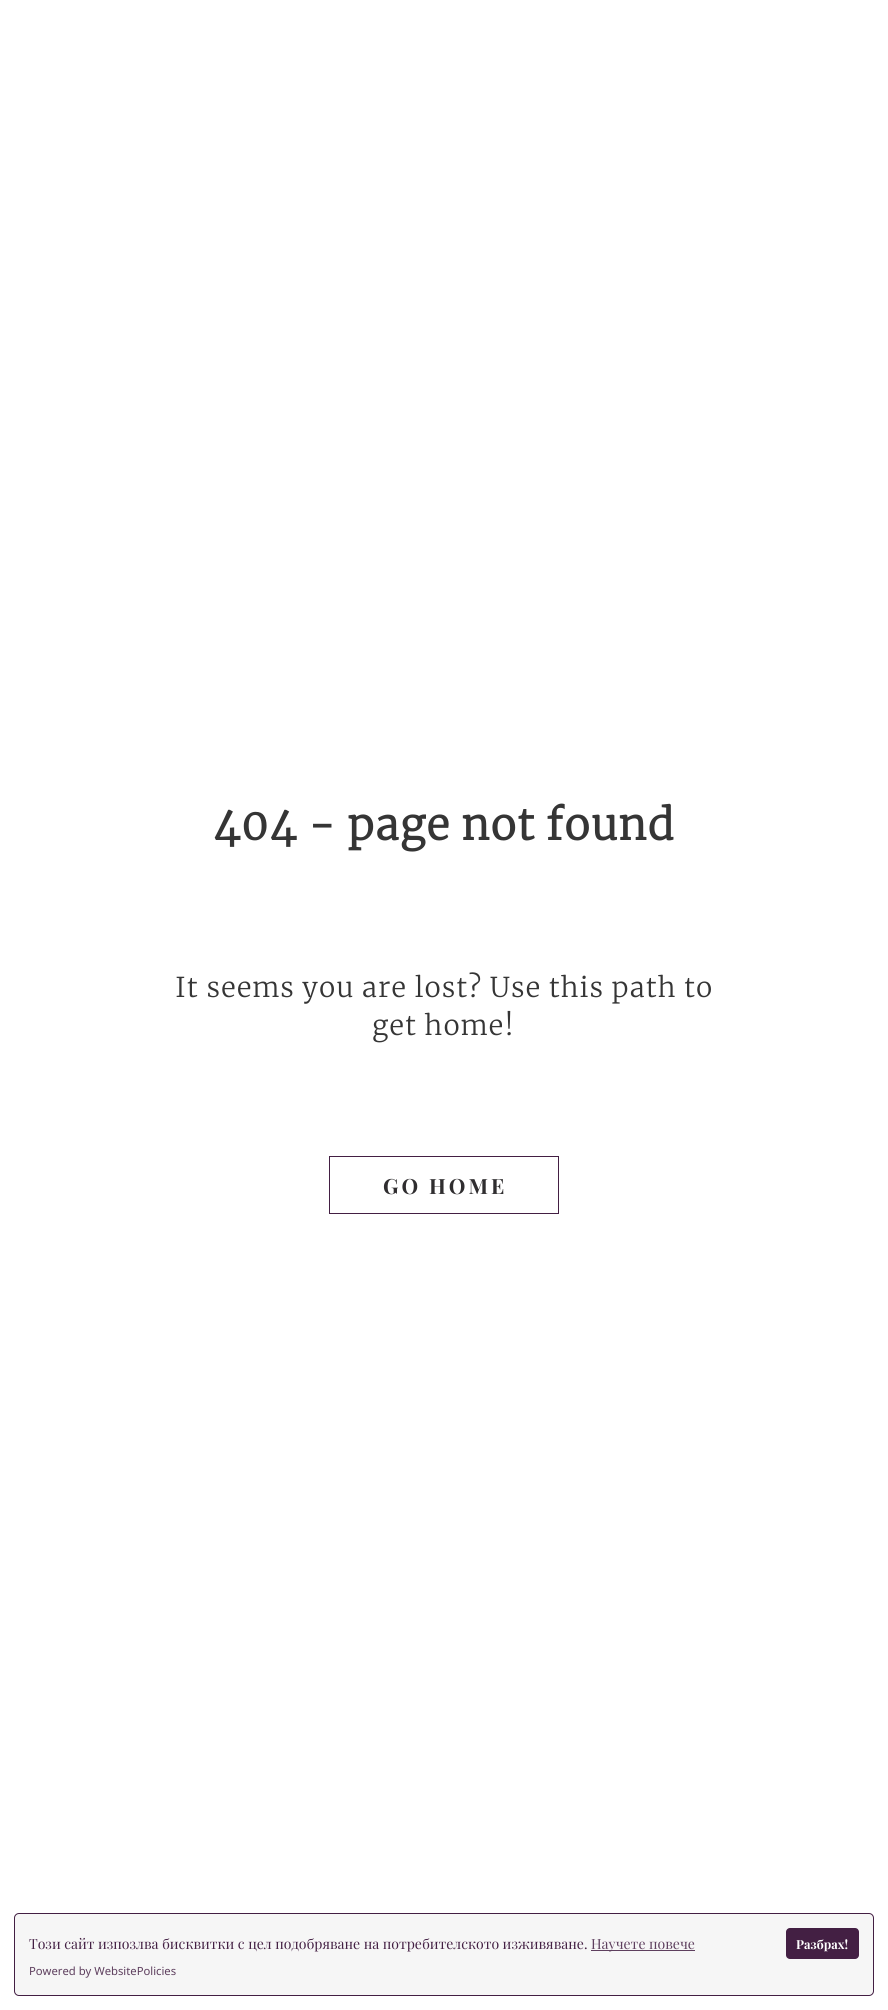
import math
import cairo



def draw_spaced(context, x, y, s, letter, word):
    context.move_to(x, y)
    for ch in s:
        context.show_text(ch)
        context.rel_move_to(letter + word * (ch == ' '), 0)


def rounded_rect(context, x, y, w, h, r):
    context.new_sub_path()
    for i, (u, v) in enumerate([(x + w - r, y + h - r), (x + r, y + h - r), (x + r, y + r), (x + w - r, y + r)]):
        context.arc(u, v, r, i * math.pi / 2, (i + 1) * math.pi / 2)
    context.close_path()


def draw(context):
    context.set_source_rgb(1, 1, 1)
    context.paint()
    context.rectangle(329.5, 1156.5, 229, 57)
    context.set_source_rgb(67 / 255, 31 / 255, 67 / 255)
    context.set_line_width(1)
    context.stroke()
    context.set_source_rgb(246 / 255, 246 / 255, 246 / 255)
    rounded_rect(context, 14.5, 1913.5, 859, 82, 4.5)
    context.fill_preserve()
    context.set_source_rgb(67 / 255, 31 / 255, 67 / 255)
    context.stroke()
    context.set_source_rgb(94 / 255, 63 / 255, 94 / 255)
    context.rectangle(591, 1950, 104, 1)
    context.fill()
    context.set_source_rgb(67 / 255, 31 / 255, 67 / 255)
    rounded_rect(context, 786, 1928, 73, 31, 4)
    context.fill()
    context.select_font_face("Merriweather", cairo.FontSlant.NORMAL, cairo.FontWeight.BOLD)
    context.set_font_size(42.75)
    context.set_source_rgb(53 / 255, 53 / 255, 53 / 255)
    draw_spaced(context, 213, 840, "404 - page not found", 1, 0)
    context.select_font_face("Merriweather Light")
    context.set_font_size(27.3)
    draw_spaced(context, 175, 997, "It seems you are lost? Use this path to", 1, 0)
    draw_spaced(context, 372, 1035, "get home!", 1, 0)
    context.select_font_face("Playfair Display", cairo.FontSlant.NORMAL, cairo.FontWeight.BOLD)
    context.set_font_size(21)
    context.set_source_rgb(47 / 255, 45 / 255, 47 / 255)
    draw_spaced(context, 383, 1194, "GO HOME", 3, 0)
    context.select_font_face("Playfair Display")
    context.set_font_size(14)
    context.set_source_rgb(67 / 255, 31 / 255, 67 / 255)
    context.move_to(29, 1949)
    context.show_text("Този сайт изпозлва бисквитки с цел подобряване на потребителското изживяване.")
    context.set_source_rgb(94 / 255, 63 / 255, 94 / 255)
    context.move_to(591, 1949)
    context.show_text("Научете повече")
    context.select_font_face("Playfair Display", cairo.FontSlant.NORMAL, cairo.FontWeight.BOLD)
    context.set_font_size(12.5)
    context.set_source_rgb(1, 1, 1)
    context.move_to(796, 1949)
    context.show_text("Разбрах!")
    context.select_font_face("Noto Sans")
    context.set_font_size(11.25)
    context.set_source_rgb(94 / 255, 63 / 255, 94 / 255)
    context.move_to(29, 1975)
    context.show_text("Powered by WebsitePolicies")


surface = cairo.ImageSurface(cairo.Format.RGB24, 888, 2010)
context = cairo.Context(surface)
options = cairo.FontOptions()
options.set_hint_metrics(cairo.HintMetrics.OFF)
options.set_hint_style(cairo.HintStyle.NONE)
context.set_font_options(options)
context.set_miter_limit(4)
draw(context)
surface.write_to_png("out.png")
